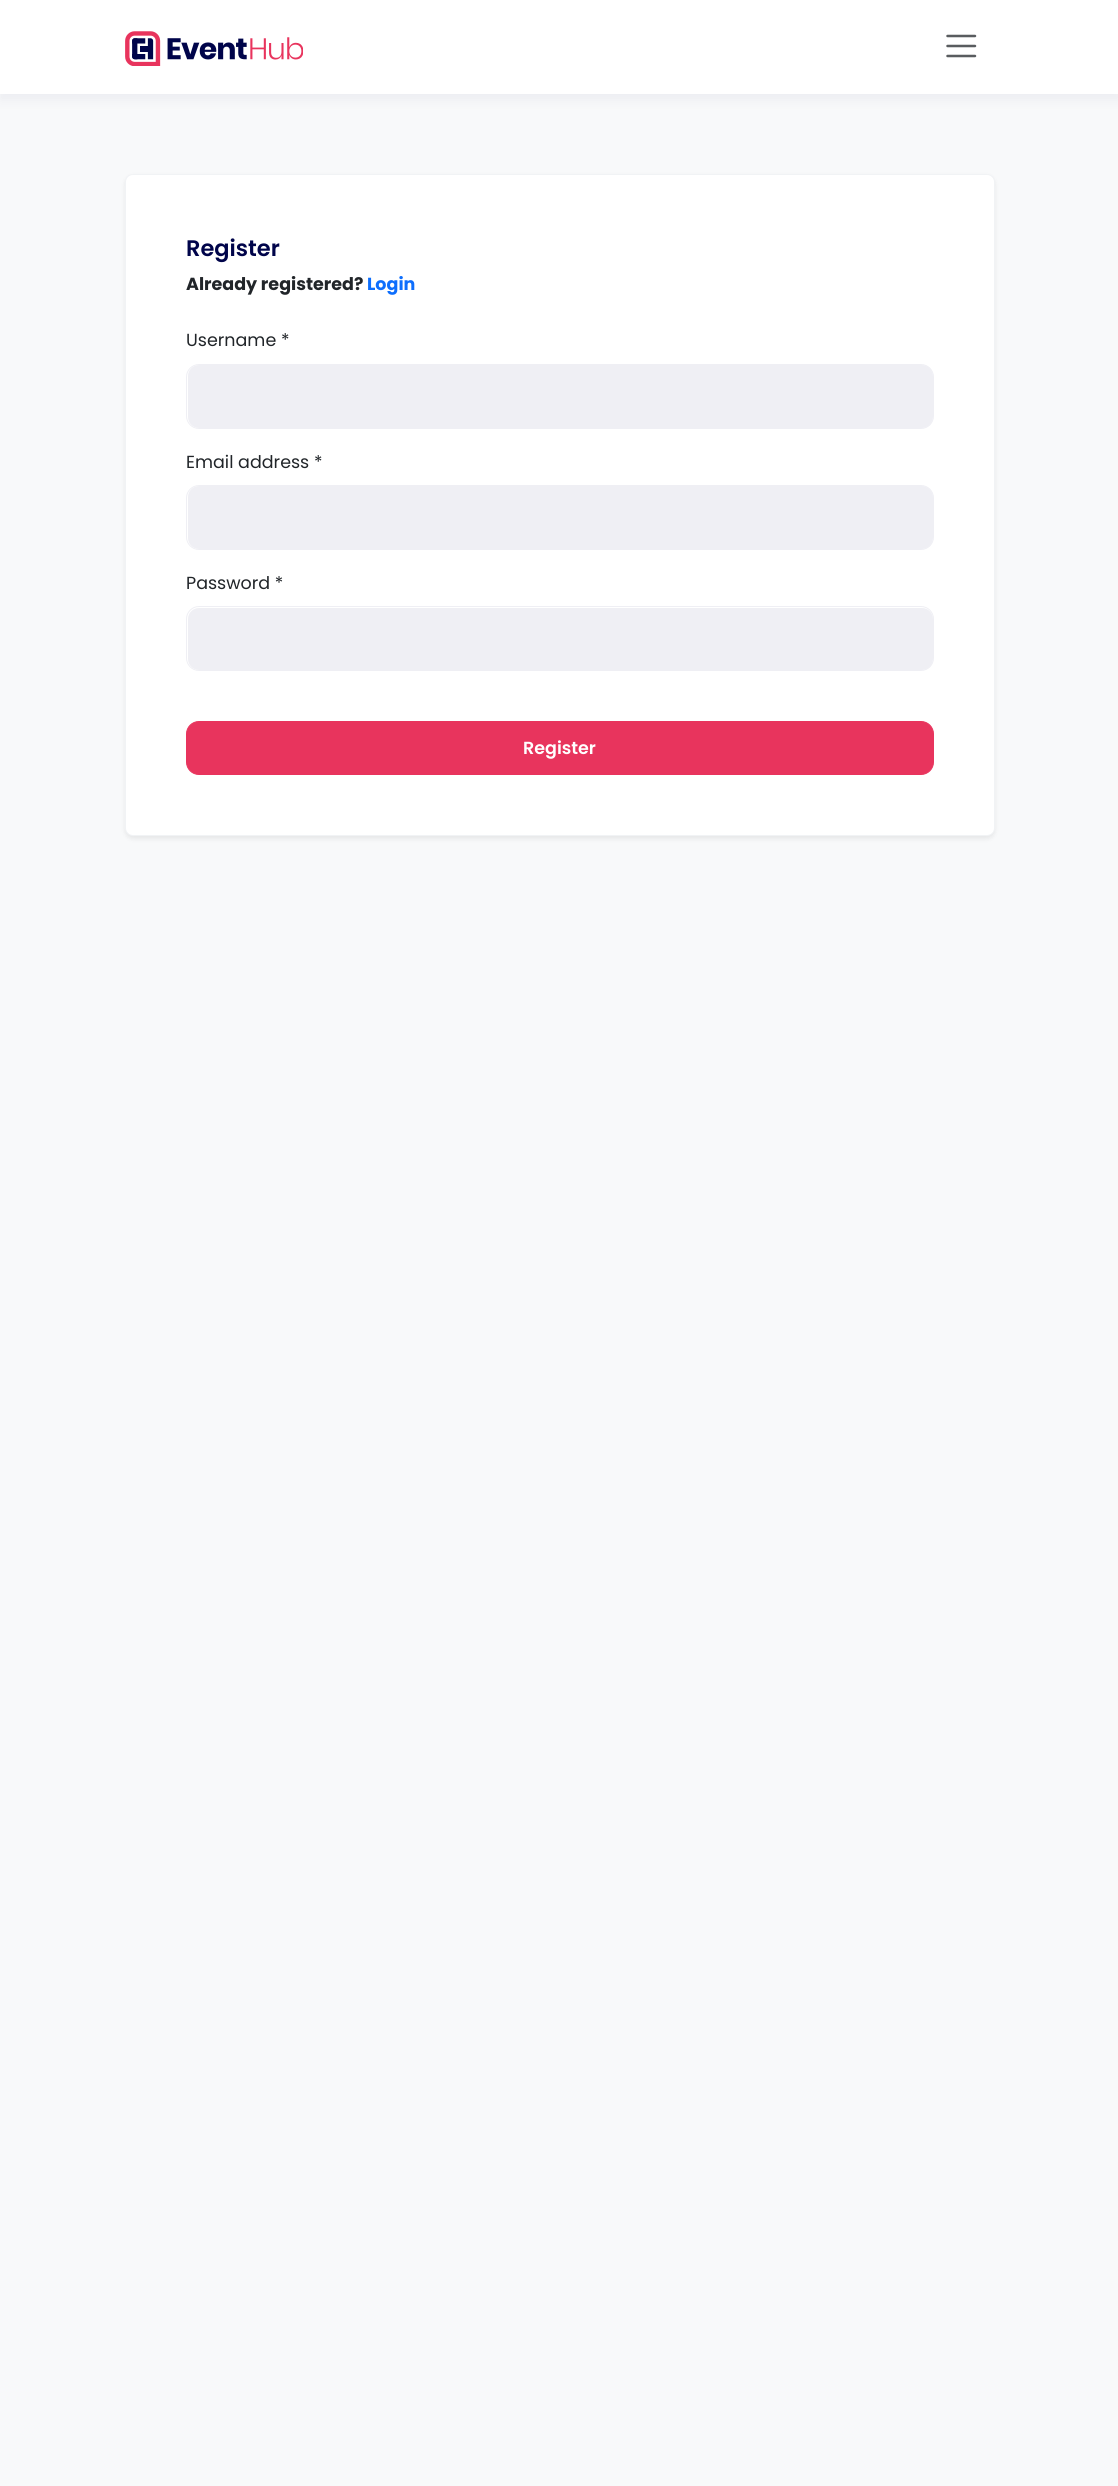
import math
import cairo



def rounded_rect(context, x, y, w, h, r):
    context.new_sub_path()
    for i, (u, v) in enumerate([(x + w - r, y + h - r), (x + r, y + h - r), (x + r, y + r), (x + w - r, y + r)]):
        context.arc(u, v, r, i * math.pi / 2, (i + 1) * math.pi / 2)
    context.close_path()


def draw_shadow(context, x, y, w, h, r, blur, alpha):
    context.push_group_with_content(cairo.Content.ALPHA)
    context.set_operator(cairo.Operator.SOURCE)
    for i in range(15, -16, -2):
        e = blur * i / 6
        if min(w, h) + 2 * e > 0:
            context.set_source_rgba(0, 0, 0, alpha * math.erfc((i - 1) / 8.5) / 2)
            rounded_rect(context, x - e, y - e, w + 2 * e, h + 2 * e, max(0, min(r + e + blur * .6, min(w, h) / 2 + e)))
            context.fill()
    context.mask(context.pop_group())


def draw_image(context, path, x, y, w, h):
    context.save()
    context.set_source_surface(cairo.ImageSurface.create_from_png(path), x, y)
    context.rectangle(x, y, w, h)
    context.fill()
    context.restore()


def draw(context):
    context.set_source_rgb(248 / 255, 249 / 255, 250 / 255)
    context.paint()
    context.set_source_rgb(0, 4 / 255, 74 / 255)
    draw_shadow(context, 0, 6, 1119, 94, 0, 6, 0.05)
    context.set_source_rgb(1, 1, 1)
    context.rectangle(0, 0, 1118, 94)
    context.fill()
    draw_image(context, "images/1.png", 125, 31, 178, 35)
    context.new_path()
    context.move_to(947.5, 36)
    context.line_to(975, 36)
    context.move_to(947.5, 46)
    context.line_to(975, 46)
    context.move_to(947.5, 56)
    context.line_to(975, 56)
    context.set_source_rgb(89 / 255, 92 / 255, 95 / 255)
    context.set_line_width(2.5)
    context.set_line_cap(cairo.LineCap.ROUND)
    context.stroke()
    context.set_source_rgb(0, 0, 0)
    draw_shadow(context, 125, 176, 870, 663, 8, 2.5, 0.07)
    context.set_source_rgb(1, 1, 1)
    rounded_rect(context, 125, 174, 870, 662, 8)
    context.fill()
    rounded_rect(context, 125.5, 174.5, 869, 661, 7.5)
    context.set_source_rgba(107 / 255, 126 / 255, 146 / 255, 0.09)
    context.set_line_width(1)
    context.set_line_cap(cairo.LineCap.BUTT)
    context.stroke()
    context.set_source_rgb(239 / 255, 239 / 255, 244 / 255)
    rounded_rect(context, 188, 365, 745, 63, 11)
    context.fill()
    rounded_rect(context, 186.5, 364.5, 747, 64, 12.5)
    context.stroke()
    rounded_rect(context, 188, 486, 745, 63, 11)
    context.fill()
    rounded_rect(context, 186.5, 485.5, 747, 64, 12.5)
    context.stroke()
    rounded_rect(context, 188, 608, 745, 62, 11)
    context.fill()
    rounded_rect(context, 186.5, 606.5, 747, 64, 12.5)
    context.stroke()
    context.set_source_rgb(232 / 255, 52 / 255, 93 / 255)
    rounded_rect(context, 186.5, 721.5, 747, 53, 12.5)
    context.fill_preserve()
    context.stroke()
    context.select_font_face("Poppins SemiBold")
    context.set_font_size(22.5)
    context.set_source_rgb(0, 4 / 255, 74 / 255)
    context.move_to(186, 256)
    context.show_text("Register")
    context.select_font_face("Poppins", cairo.FontSlant.NORMAL, cairo.FontWeight.BOLD)
    context.set_font_size(17.5)
    context.set_source_rgb(33 / 255, 37 / 255, 41 / 255)
    context.move_to(186, 290)
    context.show_text("Already registered?")
    context.set_source_rgb(13 / 255, 110 / 255, 253 / 255)
    context.move_to(367, 290)
    context.show_text("Login")
    context.select_font_face("Poppins")
    context.set_source_rgb(33 / 255, 37 / 255, 41 / 255)
    context.move_to(186, 346)
    context.show_text("Username *")
    context.move_to(186, 468)
    context.show_text("Email address *")
    context.move_to(186, 589)
    context.show_text("Password *")
    context.select_font_face("Poppins SemiBold")
    context.set_source_rgb(1, 1, 1)
    context.move_to(523, 754)
    context.show_text("Register")


surface = cairo.ImageSurface(cairo.Format.RGB24, 1118, 2486)
context = cairo.Context(surface)
options = cairo.FontOptions()
options.set_hint_metrics(cairo.HintMetrics.OFF)
options.set_hint_style(cairo.HintStyle.NONE)
context.set_font_options(options)
context.set_miter_limit(4)
draw(context)
surface.write_to_png("out.png")
